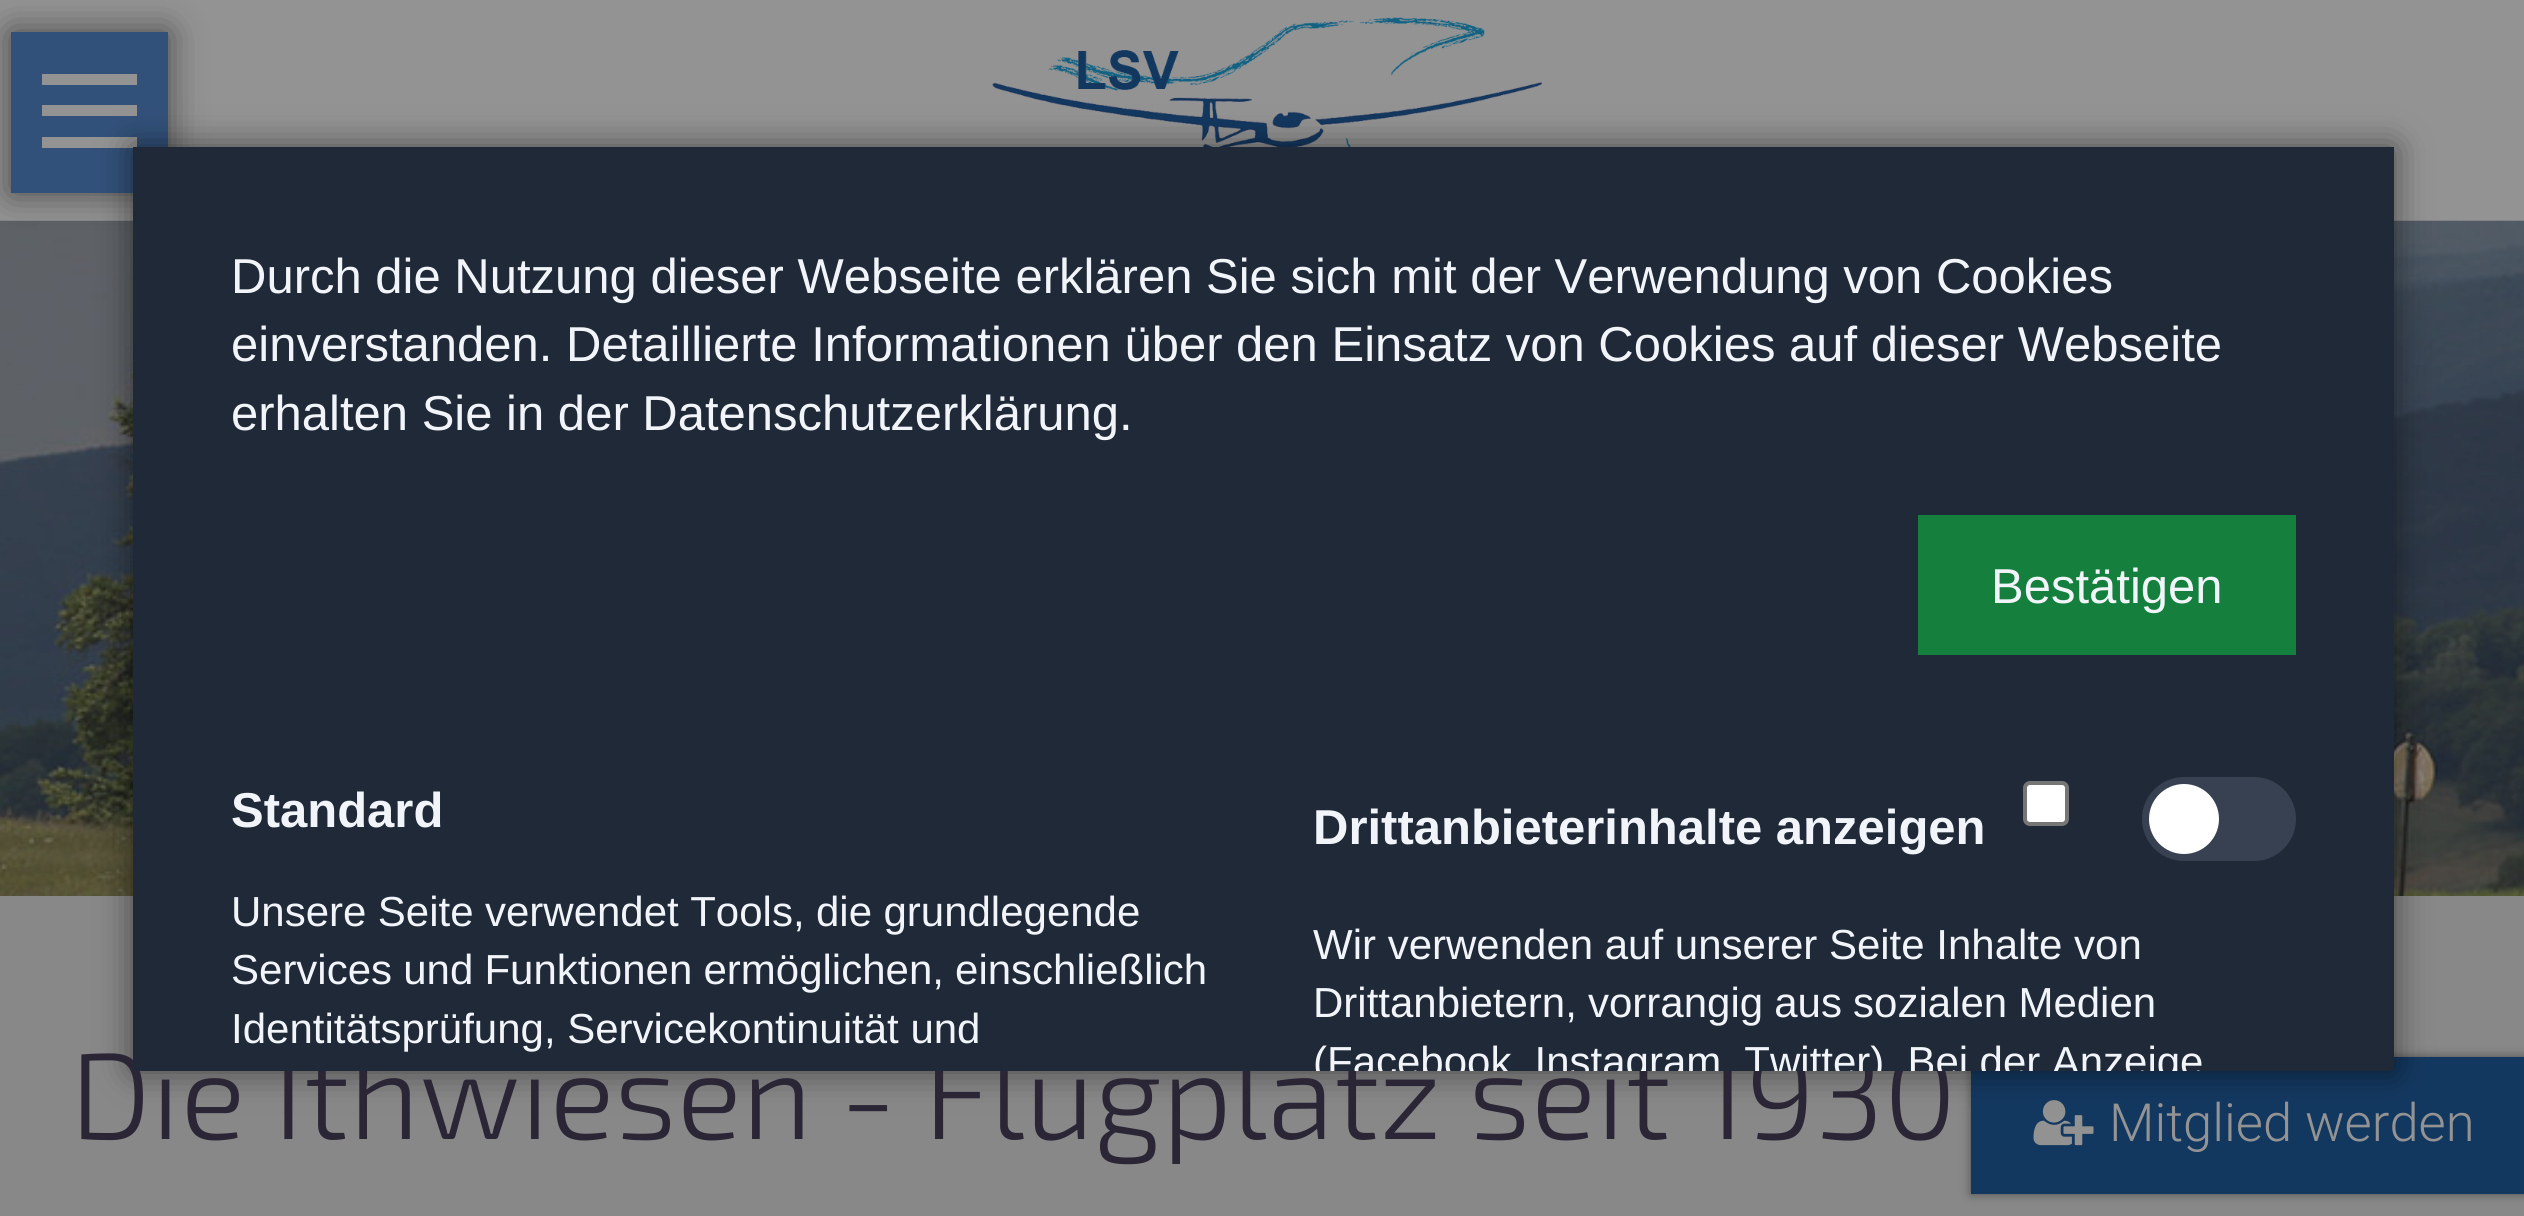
import math
import cairo



def draw_spaced(context, x, y, s, letter, word):
    context.move_to(x, y)
    for ch in s:
        context.show_text(ch)
        context.rel_move_to(letter + word * (ch == ' '), 0)


def rounded_rect(context, x, y, w, h, r):
    context.new_sub_path()
    for i, (u, v) in enumerate([(x + w - r, y + h - r), (x + r, y + h - r), (x + r, y + r), (x + w - r, y + r)]):
        context.arc(u, v, r, i * math.pi / 2, (i + 1) * math.pi / 2)
    context.close_path()


def draw_shadow(context, x, y, w, h, r, blur, alpha):
    context.push_group_with_content(cairo.Content.ALPHA)
    context.set_operator(cairo.Operator.SOURCE)
    for i in range(15, -16, -2):
        e = blur * i / 6
        if min(w, h) + 2 * e > 0:
            context.set_source_rgba(0, 0, 0, alpha * math.erfc((i - 1) / 8.5) / 2)
            rounded_rect(context, x - e, y - e, w + 2 * e, h + 2 * e, max(0, min(r + e + blur * .6, min(w, h) / 2 + e)))
            context.fill()
    context.mask(context.pop_group())


def draw_image(context, path, x, y, w, h):
    context.save()
    context.set_source_surface(cairo.ImageSurface.create_from_png(path), x, y)
    context.rectangle(x, y, w, h)
    context.fill()
    context.restore()


def draw(context):
    context.set_source_rgb(147 / 255, 147 / 255, 147 / 255)
    context.paint()
    draw_image(context, "images/1.png", 992, 17, 550, 130)
    draw_image(context, "images/2.png", 0, 220, 2524, 676)
    context.set_source_rgb(19 / 255, 19 / 255, 19 / 255)
    draw_shadow(context, 11, 32, 157, 161, 0, 17.5, 0.6)
    context.set_source_rgb(50 / 255, 81 / 255, 122 / 255)
    context.rectangle(11, 32, 157, 161)
    context.fill()
    context.set_source_rgb(147 / 255, 147 / 255, 147 / 255)
    context.rectangle(42, 105, 95, 11)
    context.fill()
    context.rectangle(42, 137, 95, 11)
    context.fill()
    context.set_source_rgb(136 / 255, 136 / 255, 137 / 255)
    context.rectangle(0, 896, 2524, 320)
    context.fill()
    context.set_source_rgb(19 / 255, 19 / 255, 19 / 255)
    draw_shadow(context, 1971, 1057, 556, 137, 0, 5, 0.5)
    context.set_source_rgb(19 / 255, 56 / 255, 96 / 255)
    context.rectangle(1971, 1057, 553, 137)
    context.fill()
    draw_image(context, "images/3.png", 2033, 1100, 61, 46)
    context.set_source_rgb(0, 0, 0)
    draw_shadow(context, 133, 147, 2261, 924, 0, 17.5, 0.5)
    context.set_source_rgb(147 / 255, 147 / 255, 147 / 255)
    context.rectangle(42, 74, 95, 11)
    context.fill()
    context.select_font_face("Exo 2 Light")
    context.set_font_size(122.5)
    context.set_source_rgb(42 / 255, 38 / 255, 53 / 255)
    context.move_to(70, 1139)
    context.show_text("Die Ithwiesen - Flugplatz seit 1930")
    context.set_source_rgb(31 / 255, 41 / 255, 55 / 255)
    context.rectangle(133, 147, 2261, 924)
    context.fill()
    context.set_source_rgb(21 / 255, 128 / 255, 61 / 255)
    context.rectangle(1918, 515, 378, 140)
    context.fill()
    context.select_font_face("Liberation Sans")
    context.set_font_size(49)
    context.set_source_rgb(241 / 255, 245 / 255, 249 / 255)
    context.move_to(1991, 603)
    context.show_text("Bestätigen")
    context.set_source_rgb(55 / 255, 65 / 255, 81 / 255)
    rounded_rect(context, 2142, 777, 154, 84, 42)
    context.fill()
    context.set_source_rgb(1, 1, 1)
    context.arc(2184, 819, 35, 0, 2 * math.pi)
    context.fill()
    context.save()
    context.rectangle(133, 147, 2261, 924)
    context.clip()
    context.set_font_size(42)
    context.set_source_rgb(241 / 255, 245 / 255, 249 / 255)
    draw_spaced(context, 1313, 1076, "(Facebook, Instagram, Twitter). Bei der Anzeige", 0, -0.25)
    context.restore()
    context.set_font_size(42)
    context.set_source_rgb(241 / 255, 245 / 255, 249 / 255)
    draw_spaced(context, 1313, 1017, "Drittanbietern, vorrangig aus sozialen Medien", 0, -0.5)
    context.move_to(1313, 959)
    context.show_text("Wir verwenden auf unserer Seite Inhalte von")
    context.set_source_rgb(1, 1, 1)
    rounded_rect(context, 2025, 783, 42, 41, 5)
    context.fill_preserve()
    context.set_source_rgb(118 / 255, 118 / 255, 118 / 255)
    context.set_line_width(4)
    context.stroke()
    context.select_font_face("Liberation Sans", cairo.FontSlant.NORMAL, cairo.FontWeight.BOLD)
    context.set_font_size(49)
    context.set_source_rgb(241 / 255, 245 / 255, 249 / 255)
    context.move_to(1313, 844)
    context.show_text("Drittanbieterinhalte anzeigen")
    context.select_font_face("Liberation Sans")
    context.set_font_size(42)
    context.move_to(231, 1043)
    context.show_text("Identitätsprüfung, Servicekontinuität und")
    draw_spaced(context, 231, 984, "Services und Funktionen ermöglichen, einschließlich", 0, -0.5)
    draw_spaced(context, 231, 926, "Unsere Seite verwendet Tools, die grundlegende", 0, -0.25)
    context.select_font_face("Liberation Sans", cairo.FontSlant.NORMAL, cairo.FontWeight.BOLD)
    context.set_font_size(49)
    context.move_to(231, 827)
    context.show_text("Standard")
    context.select_font_face("Liberation Sans")
    context.move_to(231, 430)
    context.show_text("erhalten Sie in der Datenschutzerklärung.")
    context.move_to(231, 361)
    context.show_text("einverstanden. Detaillierte Informationen über den Einsatz von Cookies auf dieser Webseite")
    context.move_to(231, 293)
    context.show_text("Durch die Nutzung dieser Webseite erklären Sie sich mit der Verwendung von Cookies")
    context.select_font_face("Roboto Light")
    context.set_font_size(52.5)
    context.set_source_rgb(147 / 255, 147 / 255, 147 / 255)
    context.move_to(2109, 1141)
    context.show_text("Mitglied werden")


surface = cairo.ImageSurface(cairo.Format.RGB24, 2524, 1216)
context = cairo.Context(surface)
options = cairo.FontOptions()
options.set_hint_metrics(cairo.HintMetrics.OFF)
options.set_hint_style(cairo.HintStyle.NONE)
context.set_font_options(options)
context.set_miter_limit(4)
draw(context)
surface.write_to_png("out.png")
